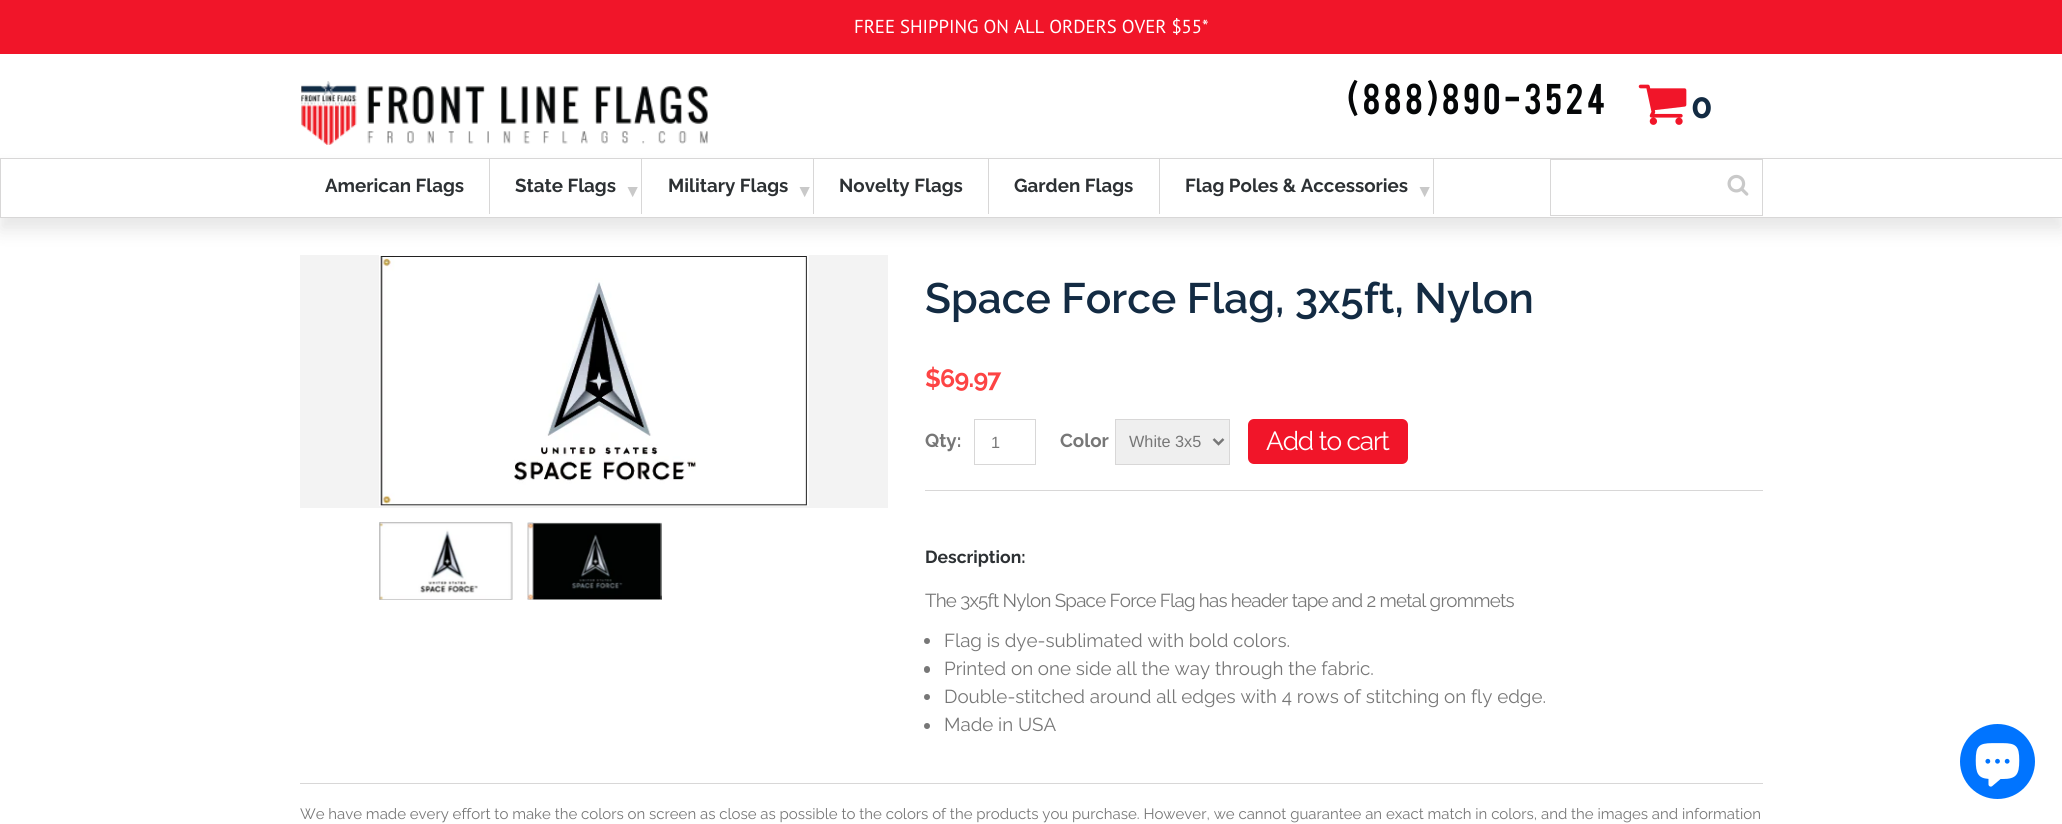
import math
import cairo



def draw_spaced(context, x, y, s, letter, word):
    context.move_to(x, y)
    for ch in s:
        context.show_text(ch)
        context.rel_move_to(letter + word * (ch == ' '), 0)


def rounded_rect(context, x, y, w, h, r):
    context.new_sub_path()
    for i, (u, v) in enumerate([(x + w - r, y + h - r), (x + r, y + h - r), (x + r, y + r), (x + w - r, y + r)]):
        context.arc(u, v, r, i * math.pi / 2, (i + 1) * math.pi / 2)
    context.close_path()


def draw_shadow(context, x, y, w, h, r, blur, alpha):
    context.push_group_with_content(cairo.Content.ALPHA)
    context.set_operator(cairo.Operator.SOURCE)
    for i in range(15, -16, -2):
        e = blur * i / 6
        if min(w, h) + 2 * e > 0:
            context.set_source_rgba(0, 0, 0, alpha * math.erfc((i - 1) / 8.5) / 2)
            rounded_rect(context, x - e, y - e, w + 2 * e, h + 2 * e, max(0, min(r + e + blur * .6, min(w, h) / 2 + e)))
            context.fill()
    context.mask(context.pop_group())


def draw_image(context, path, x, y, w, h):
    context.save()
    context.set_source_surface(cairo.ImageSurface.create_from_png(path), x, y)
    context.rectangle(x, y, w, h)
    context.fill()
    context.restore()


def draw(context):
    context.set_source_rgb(1, 1, 1)
    context.paint()
    context.set_source_rgb(241 / 255, 21 / 255, 41 / 255)
    context.rectangle(0, 0, 2062, 54)
    context.fill()
    draw_image(context, "images/1.png", 301, 81, 407, 64)
    draw_image(context, "images/2.png", 1638, 84, 49, 41)
    context.set_source_rgb(243 / 255, 243 / 255, 243 / 255)
    context.rectangle(300, 255, 588, 253)
    context.fill()
    draw_image(context, "images/4.png", 379, 255, 430, 251)
    context.set_source_rgb(0, 0, 0)
    draw_shadow(context, 0, 170, 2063, 60, 0, 9, 0.1)
    context.set_source_rgb(1, 1, 1)
    context.rectangle(0.5, 158.5, 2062, 59)
    context.fill_preserve()
    context.set_source_rgb(216 / 255, 215 / 255, 215 / 255)
    context.set_line_width(1)
    context.stroke()
    context.rectangle(489, 159, 1, 55)
    context.fill()
    context.rectangle(641, 159, 1, 55)
    context.fill()
    context.rectangle(813, 159, 1, 55)
    context.fill()
    context.rectangle(988, 159, 1, 55)
    context.fill()
    context.rectangle(1159, 159, 1, 55)
    context.fill()
    context.rectangle(1433, 159, 1, 55)
    context.fill()
    context.rectangle(1550.5, 159.5, 212, 56)
    context.stroke()
    draw_image(context, "images/3.png", 1727, 174, 22, 22)
    context.set_source_rgb(243 / 255, 243 / 255, 243 / 255)
    context.rectangle(379, 523, 134, 77)
    context.fill()
    draw_image(context, "images/5.png", 379, 522, 134, 78)
    draw_image(context, "images/6.png", 527, 522, 135, 78)
    context.rectangle(974.5, 419.5, 61, 45)
    context.set_source_rgb(216 / 255, 215 / 255, 215 / 255)
    context.stroke()
    context.set_source_rgb(239 / 255, 239 / 255, 239 / 255)
    context.rectangle(1115.5, 419.5, 114, 45)
    context.fill_preserve()
    context.set_source_rgb(216 / 255, 215 / 255, 215 / 255)
    context.stroke()
    context.new_path()
    context.move_to(1213.5, 439)
    context.line_to(1218.5, 444)
    context.line_to(1223.5, 439)
    context.set_source_rgb(119 / 255, 119 / 255, 119 / 255)
    context.set_line_width(2.5)
    context.stroke()
    context.set_source_rgb(241 / 255, 21 / 255, 41 / 255)
    rounded_rect(context, 1248, 419, 160, 45, 6)
    context.fill()
    context.set_source_rgb(216 / 255, 215 / 255, 215 / 255)
    context.rectangle(925, 490, 838, 1)
    context.fill()
    context.set_source_rgb(119 / 255, 119 / 255, 119 / 255)
    context.arc(927, 641, 3, 0, 2 * math.pi)
    context.fill()
    rounded_rect(context, 924, 666, 6, 7, 3)
    context.fill()
    context.arc(927, 697, 3, 0, 2 * math.pi)
    context.fill()
    context.arc(927, 726, 3, 0, 2 * math.pi)
    context.fill()
    context.set_source_rgb(216 / 255, 215 / 255, 215 / 255)
    context.rectangle(300, 783, 1463, 1)
    context.fill()
    context.set_source_rgb(0, 116 / 255, 1)
    context.arc(1997.5, 761.5, 37.5, 0, 2 * math.pi)
    context.fill()
    draw_image(context, "images/7.png", 1975, 743, 45, 44)
    context.select_font_face("PT Sans")
    context.set_font_size(18.75)
    context.set_source_rgb(1, 1, 1)
    context.move_to(854, 33)
    context.show_text("FREE SHIPPING ON ALL ORDERS OVER $55*")
    context.select_font_face("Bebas")
    context.set_font_size(33.75)
    context.set_source_rgb(5 / 255, 7 / 255, 8 / 255)
    draw_spaced(context, 1347, 114, "(888)890-3524", 3.4, 0)
    context.select_font_face("Raleway", cairo.FontSlant.NORMAL, cairo.FontWeight.BOLD)
    context.set_font_size(35)
    context.set_source_rgb(19 / 255, 43 / 255, 67 / 255)
    draw_spaced(context, 1691, 118, "0", -1, 0)
    context.set_font_size(18.75)
    context.set_source_rgb(45 / 255, 49 / 255, 52 / 255)
    context.move_to(325, 192)
    context.show_text("American Flags")
    context.move_to(515, 192)
    context.show_text("State Flags")
    context.select_font_face("Liberation Serif")
    context.set_font_size(17.5)
    context.set_source_rgb(201 / 255, 201 / 255, 201 / 255)
    context.move_to(624, 197)
    context.show_text("▼")
    context.select_font_face("Raleway", cairo.FontSlant.NORMAL, cairo.FontWeight.BOLD)
    context.set_font_size(18.75)
    context.set_source_rgb(45 / 255, 49 / 255, 52 / 255)
    context.move_to(668, 192)
    context.show_text("Military Flags")
    context.select_font_face("Liberation Serif")
    context.set_font_size(17.5)
    context.set_source_rgb(201 / 255, 201 / 255, 201 / 255)
    context.move_to(796, 197)
    context.show_text("▼")
    context.select_font_face("Raleway", cairo.FontSlant.NORMAL, cairo.FontWeight.BOLD)
    context.set_font_size(18.75)
    context.set_source_rgb(45 / 255, 49 / 255, 52 / 255)
    context.move_to(839, 192)
    context.show_text("Novelty Flags")
    context.move_to(1014, 192)
    context.show_text("Garden Flags")
    context.move_to(1185, 192)
    context.show_text("Flag Poles & Accessories")
    context.select_font_face("Liberation Serif")
    context.set_font_size(17.5)
    context.set_source_rgb(201 / 255, 201 / 255, 201 / 255)
    context.move_to(1416, 197)
    context.show_text("▼")
    context.select_font_face("Raleway SemiBold")
    context.set_font_size(42.5)
    context.set_source_rgb(19 / 255, 43 / 255, 67 / 255)
    context.move_to(925, 313)
    context.show_text("Space Force Flag, 3x5ft, Nylon")
    context.select_font_face("Raleway", cairo.FontSlant.NORMAL, cairo.FontWeight.BOLD)
    context.set_font_size(25)
    context.set_source_rgb(253 / 255, 68 / 255, 68 / 255)
    draw_spaced(context, 925, 387, "$69.97", -0.75, 0)
    context.set_font_size(18.75)
    context.set_source_rgb(119 / 255, 119 / 255, 119 / 255)
    context.move_to(925, 447)
    context.show_text("Qty:")
    context.select_font_face("Liberation Sans")
    context.set_font_size(16.25)
    context.move_to(991, 448)
    context.show_text("1")
    context.select_font_face("Raleway", cairo.FontSlant.NORMAL, cairo.FontWeight.BOLD)
    context.set_font_size(18.75)
    context.move_to(1060, 447)
    context.show_text("Color")
    context.select_font_face("Liberation Sans")
    context.set_font_size(16.25)
    context.move_to(1129, 447)
    context.show_text("White 3x5")
    context.select_font_face("Raleway")
    context.set_font_size(26.25)
    context.set_source_rgb(1, 1, 1)
    draw_spaced(context, 1266, 450, "Add to cart", -1.1, 0)
    context.select_font_face("Raleway", cairo.FontSlant.NORMAL, cairo.FontWeight.BOLD)
    context.set_font_size(17.5)
    context.set_source_rgb(45 / 255, 49 / 255, 52 / 255)
    context.move_to(925, 563)
    context.show_text("Description:")
    context.select_font_face("Raleway")
    context.set_font_size(18.75)
    context.set_source_rgb(119 / 255, 119 / 255, 119 / 255)
    draw_spaced(context, 925, 607, "The 3x5ft Nylon Space Force Flag has header tape and 2 metal grommets", -0.75, 0)
    context.move_to(944, 647)
    context.show_text("Flag is dye-sublimated with bold colors.")
    context.move_to(944, 675)
    context.show_text("Printed on one side all the way through the fabric.")
    context.move_to(944, 703)
    context.show_text("Double-stitched around all edges with 4 rows of stitching on fly edge.")
    context.move_to(944, 731)
    context.show_text("Made in USA")
    context.set_font_size(15)
    context.move_to(300, 819)
    context.show_text("We have made every effort to make the colors on screen as close as possible to the colors of the products you purchase. However, we cannot guarantee an exact match in colors, and the images and information")


surface = cairo.ImageSurface(cairo.Format.RGB24, 2062, 824)
context = cairo.Context(surface)
options = cairo.FontOptions()
options.set_hint_metrics(cairo.HintMetrics.OFF)
options.set_hint_style(cairo.HintStyle.NONE)
context.set_font_options(options)
context.set_miter_limit(4)
draw(context)
surface.write_to_png("out.png")
